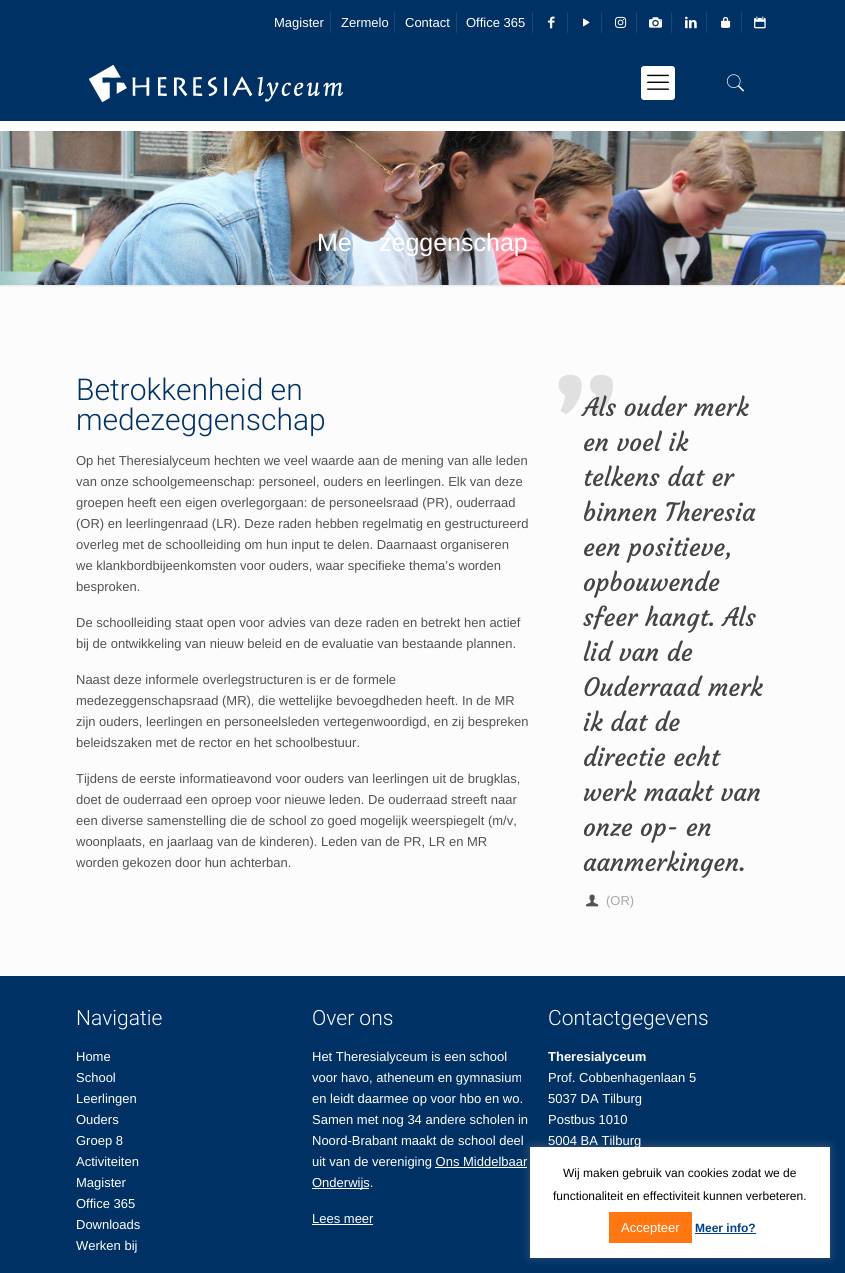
import math
import cairo



def rounded_rect(context, x, y, w, h, r):
    context.new_sub_path()
    for i, (u, v) in enumerate([(x + w - r, y + h - r), (x + r, y + h - r), (x + r, y + r), (x + w - r, y + r)]):
        context.arc(u, v, r, i * math.pi / 2, (i + 1) * math.pi / 2)
    context.close_path()


def draw_shadow(context, x, y, w, h, r, blur, alpha):
    context.push_group_with_content(cairo.Content.ALPHA)
    context.set_operator(cairo.Operator.SOURCE)
    for i in range(15, -16, -2):
        e = blur * i / 6
        if min(w, h) + 2 * e > 0:
            context.set_source_rgba(0, 0, 0, alpha * math.erfc((i - 1) / 8.5) / 2)
            rounded_rect(context, x - e, y - e, w + 2 * e, h + 2 * e, max(0, min(r + e + blur * .6, min(w, h) / 2 + e)))
            context.fill()
    context.mask(context.pop_group())


def draw_image(context, path, x, y, w, h):
    context.save()
    context.set_source_surface(cairo.ImageSurface.create_from_png(path), x, y)
    context.rectangle(x, y, w, h)
    context.fill()
    context.restore()


def draw(context):
    context.set_source_rgb(252 / 255, 252 / 255, 252 / 255)
    context.paint()
    context.set_source_rgb(1, 1, 1)
    context.rectangle(0, 121, 845, 10)
    context.fill()
    draw_image(context, "images/1.png", 0, 131, 845, 154)
    context.set_source_rgb(0, 49 / 255, 100 / 255)
    context.rectangle(0, 0, 845, 121)
    context.fill()
    context.set_source_rgb(26 / 255, 70 / 255, 116 / 255)
    context.rectangle(330, 12, 1, 21)
    context.fill()
    context.rectangle(394, 12, 1, 21)
    context.fill()
    context.rectangle(456, 12, 1, 21)
    context.fill()
    context.rectangle(532, 12, 1, 21)
    context.fill()
    context.rectangle(567, 12, 1, 21)
    context.fill()
    draw_image(context, "images/2.png", 548, 16, 7, 13)
    context.rectangle(601, 12, 1, 21)
    context.fill()
    draw_image(context, "images/3.png", 583, 18, 7, 9)
    context.rectangle(636, 12, 1, 21)
    context.fill()
    draw_image(context, "images/4.png", 615, 16, 12, 12)
    context.rectangle(671, 12, 1, 21)
    context.fill()
    draw_image(context, "images/5.png", 649, 17, 13, 11)
    context.rectangle(706, 12, 1, 21)
    context.fill()
    draw_image(context, "images/6.png", 685, 16, 12, 13)
    context.rectangle(741, 12, 1, 21)
    context.fill()
    draw_image(context, "images/7.png", 721, 16, 10, 12)
    draw_image(context, "images/8.png", 754, 16, 12, 13)
    draw_image(context, "images/9.png", 89, 65, 254, 37)
    context.set_source_rgb(1, 1, 1)
    rounded_rect(context, 641, 66, 34, 34, 3)
    context.fill()
    draw_image(context, "images/10.png", 647, 74, 22, 16)
    draw_image(context, "images/11.png", 726, 74, 19, 18)
    draw_image(context, "images/12.png", 0, 285, 845, 2)
    draw_image(context, "images/14.png", 586, 894, 13, 13)
    context.set_source_rgb(0, 49 / 255, 100 / 255)
    context.rectangle(0, 976, 845, 297)
    context.fill()
    context.set_source_rgb(1, 1, 1)
    context.rectangle(435, 1167, 92, 1)
    context.fill()
    context.rectangle(312, 1188, 57, 1)
    context.fill()
    context.rectangle(312, 1224, 61, 1)
    context.fill()
    context.set_source_rgb(172 / 255, 171 / 255, 171 / 255)
    draw_shadow(context, 530, 1146, 300, 111, 0, 5, 0.3)
    context.set_source_rgb(1, 1, 1)
    context.rectangle(530, 1147, 300, 111)
    context.fill()
    context.set_source_rgb(1, 119 / 255, 19 / 255)
    context.rectangle(609, 1212, 83, 31)
    context.fill()
    context.set_source_rgb(0, 65 / 255, 134 / 255)
    context.rectangle(695, 1233, 61, 1)
    context.fill()
    context.select_font_face("Liberation Sans")
    context.set_font_size(13)
    context.set_source_rgb(1, 1, 1)
    context.move_to(274, 27)
    context.show_text("Magister")
    context.move_to(341, 27)
    context.show_text("Zermelo")
    context.move_to(405, 27)
    context.show_text("Contact")
    context.move_to(466, 27)
    context.show_text("Office 365")
    context.set_font_size(25)
    context.move_to(317, 251)
    context.show_text("Me")
    context.move_to(379, 251)
    context.show_text("zeggenschap")
    context.select_font_face("Roboto Light")
    context.set_font_size(30)
    context.set_source_rgb(0, 49 / 255, 100 / 255)
    context.move_to(76, 400)
    context.show_text("Betrokkenheid en")
    context.move_to(76, 430)
    context.show_text("medezeggenschap")
    context.select_font_face("Liberation Sans")
    context.set_font_size(13)
    context.set_source_rgb(82 / 255, 82 / 255, 82 / 255)
    context.move_to(76, 465)
    context.show_text("Op het Theresialyceum hechten we veel waarde aan de mening van alle leden")
    context.move_to(76, 486)
    context.show_text("van onze schoolgemeenschap: personeel, ouders en leerlingen. Elk van deze")
    context.move_to(76, 507)
    context.show_text("groepen heeft een eigen overlegorgaan: de personeelsraad (PR), ouderraad")
    context.move_to(76, 528)
    context.show_text("(OR) en leerlingenraad (LR). Deze raden hebben regelmatig en gestructureerd")
    context.move_to(76, 549)
    context.show_text("overleg met de schoolleiding om hun input te delen. Daarnaast organiseren")
    context.move_to(76, 570)
    context.show_text("we klankbordbijeenkomsten voor ouders, waar specifieke thema’s worden")
    context.move_to(76, 591)
    context.show_text("besproken.")
    context.move_to(76, 627)
    context.show_text("De schoolleiding staat open voor advies van deze raden en betrekt hen actief")
    context.move_to(76, 648)
    context.show_text("bij de ontwikkeling van nieuw beleid en de evaluatie van bestaande plannen.")
    context.move_to(76, 684)
    context.show_text("Naast deze informele overlegstructuren is er de formele")
    context.move_to(76, 705)
    context.show_text("medezeggenschapsraad (MR), die wettelijke bevoegdheden heeft. In de MR")
    context.move_to(76, 726)
    context.show_text("zijn ouders, leerlingen en personeelsleden vertegenwoordigd, en zij bespreken")
    context.move_to(76, 747)
    context.show_text("beleidszaken met de rector en het schoolbestuur.")
    context.move_to(76, 783)
    context.show_text("Tijdens de eerste informatieavond voor ouders van leerlingen uit de brugklas,")
    context.move_to(76, 804)
    context.show_text("doet de ouderraad een oproep voor nieuwe leden. De ouderraad streeft naar")
    context.move_to(76, 825)
    context.show_text("een diverse samenstelling die de school zo goed mogelijk weerspiegelt (m/v,")
    context.move_to(76, 846)
    context.show_text("woonplaats, en jaarlaag van de kinderen). Leden van de PR, LR en MR")
    context.move_to(76, 867)
    context.show_text("worden gekozen door hun achterban.")
    context.select_font_face("Courgette")
    context.set_font_size(25)
    context.set_source_rgb(68 / 255, 68 / 255, 68 / 255)
    context.move_to(583, 416)
    context.show_text("Als ouder merk")
    draw_image(context, "images/13.png", 558, 375, 55, 40)
    context.move_to(583, 451)
    context.show_text("en voel ik")
    context.move_to(583, 486)
    context.show_text("telkens dat er")
    context.move_to(583, 521)
    context.show_text("binnen Theresia")
    context.move_to(583, 556)
    context.show_text("een positieve,")
    context.move_to(583, 591)
    context.show_text("opbouwende")
    context.move_to(583, 626)
    context.show_text("sfeer hangt. Als")
    context.move_to(583, 661)
    context.show_text("lid van de")
    context.move_to(583, 696)
    context.show_text("Ouderraad merk")
    context.move_to(583, 731)
    context.show_text("ik dat de")
    context.move_to(583, 766)
    context.show_text("directie echt")
    context.move_to(583, 801)
    context.show_text("werk maakt van")
    context.move_to(583, 836)
    context.show_text("onze op- en")
    context.move_to(583, 871)
    context.show_text("aanmerkingen.")
    context.select_font_face("Liberation Sans")
    context.set_font_size(13)
    context.set_source_rgb(168 / 255, 168 / 255, 168 / 255)
    context.move_to(606, 905)
    context.show_text("(OR)")
    context.select_font_face("Roboto Light")
    context.set_font_size(21)
    context.set_source_rgb(1, 1, 1)
    context.move_to(76, 1025)
    context.show_text("Navigatie")
    context.select_font_face("Liberation Sans")
    context.set_font_size(13)
    context.move_to(76, 1061)
    context.show_text("Home")
    context.move_to(76, 1082)
    context.show_text("School")
    context.move_to(76, 1103)
    context.show_text("Leerlingen")
    context.move_to(76, 1124)
    context.show_text("Ouders")
    context.move_to(76, 1145)
    context.show_text("Groep 8")
    context.move_to(76, 1166)
    context.show_text("Activiteiten")
    context.move_to(76, 1187)
    context.show_text("Magister")
    context.move_to(76, 1208)
    context.show_text("Office 365")
    context.move_to(76, 1229)
    context.show_text("Downloads")
    context.move_to(76, 1250)
    context.show_text("Werken bij")
    context.select_font_face("Roboto Light")
    context.set_font_size(21)
    context.move_to(312, 1025)
    context.show_text("Over ons")
    context.select_font_face("Liberation Sans")
    context.set_font_size(13)
    context.move_to(312, 1061)
    context.show_text("Het Theresialyceum is een school")
    context.move_to(312, 1082)
    context.show_text("voor havo, atheneum en gymnasium")
    context.move_to(312, 1103)
    context.show_text("en leidt daarmee op voor hbo en wo.")
    context.move_to(312, 1124)
    context.show_text("Samen met nog 34 andere scholen in")
    context.move_to(312, 1145)
    context.show_text("Noord-Brabant maakt de school deel")
    context.move_to(312, 1166)
    context.show_text("uit van de vereniging Ons Middelbaar")
    context.move_to(312, 1187)
    context.show_text("Onderwijs.")
    context.move_to(312, 1223)
    context.show_text("Lees meer")
    context.select_font_face("Roboto Light")
    context.set_font_size(21)
    context.move_to(548, 1025)
    context.show_text("Contactgegevens")
    context.select_font_face("Liberation Sans", cairo.FontSlant.NORMAL, cairo.FontWeight.BOLD)
    context.set_font_size(13)
    context.move_to(548, 1061)
    context.show_text("Theresialyceum")
    context.select_font_face("Liberation Sans")
    context.move_to(548, 1082)
    context.show_text("Prof. Cobbenhagenlaan 5")
    context.move_to(548, 1103)
    context.show_text("5037 DA Tilburg")
    context.move_to(548, 1124)
    context.show_text("Postbus 1010")
    context.move_to(548, 1145)
    context.show_text("5004 BA Tilburg")
    context.set_font_size(12)
    context.set_source_rgb(0, 0, 0)
    context.move_to(563, 1177)
    context.show_text("Wij maken gebruik van cookies zodat we de")
    context.move_to(553, 1200)
    context.show_text("functionaliteit en effectiviteit kunnen verbeteren.")
    context.set_font_size(13)
    context.set_source_rgb(1, 1, 1)
    context.move_to(621, 1232)
    context.show_text("Accepteer")
    context.select_font_face("Liberation Sans", cairo.FontSlant.NORMAL, cairo.FontWeight.BOLD)
    context.set_font_size(12)
    context.set_source_rgb(0, 65 / 255, 134 / 255)
    context.move_to(695, 1232)
    context.show_text("Meer info?")


surface = cairo.ImageSurface(cairo.Format.RGB24, 845, 1273)
context = cairo.Context(surface)
options = cairo.FontOptions()
options.set_hint_metrics(cairo.HintMetrics.OFF)
options.set_hint_style(cairo.HintStyle.NONE)
context.set_font_options(options)
context.set_miter_limit(4)
draw(context)
surface.write_to_png("out.png")
